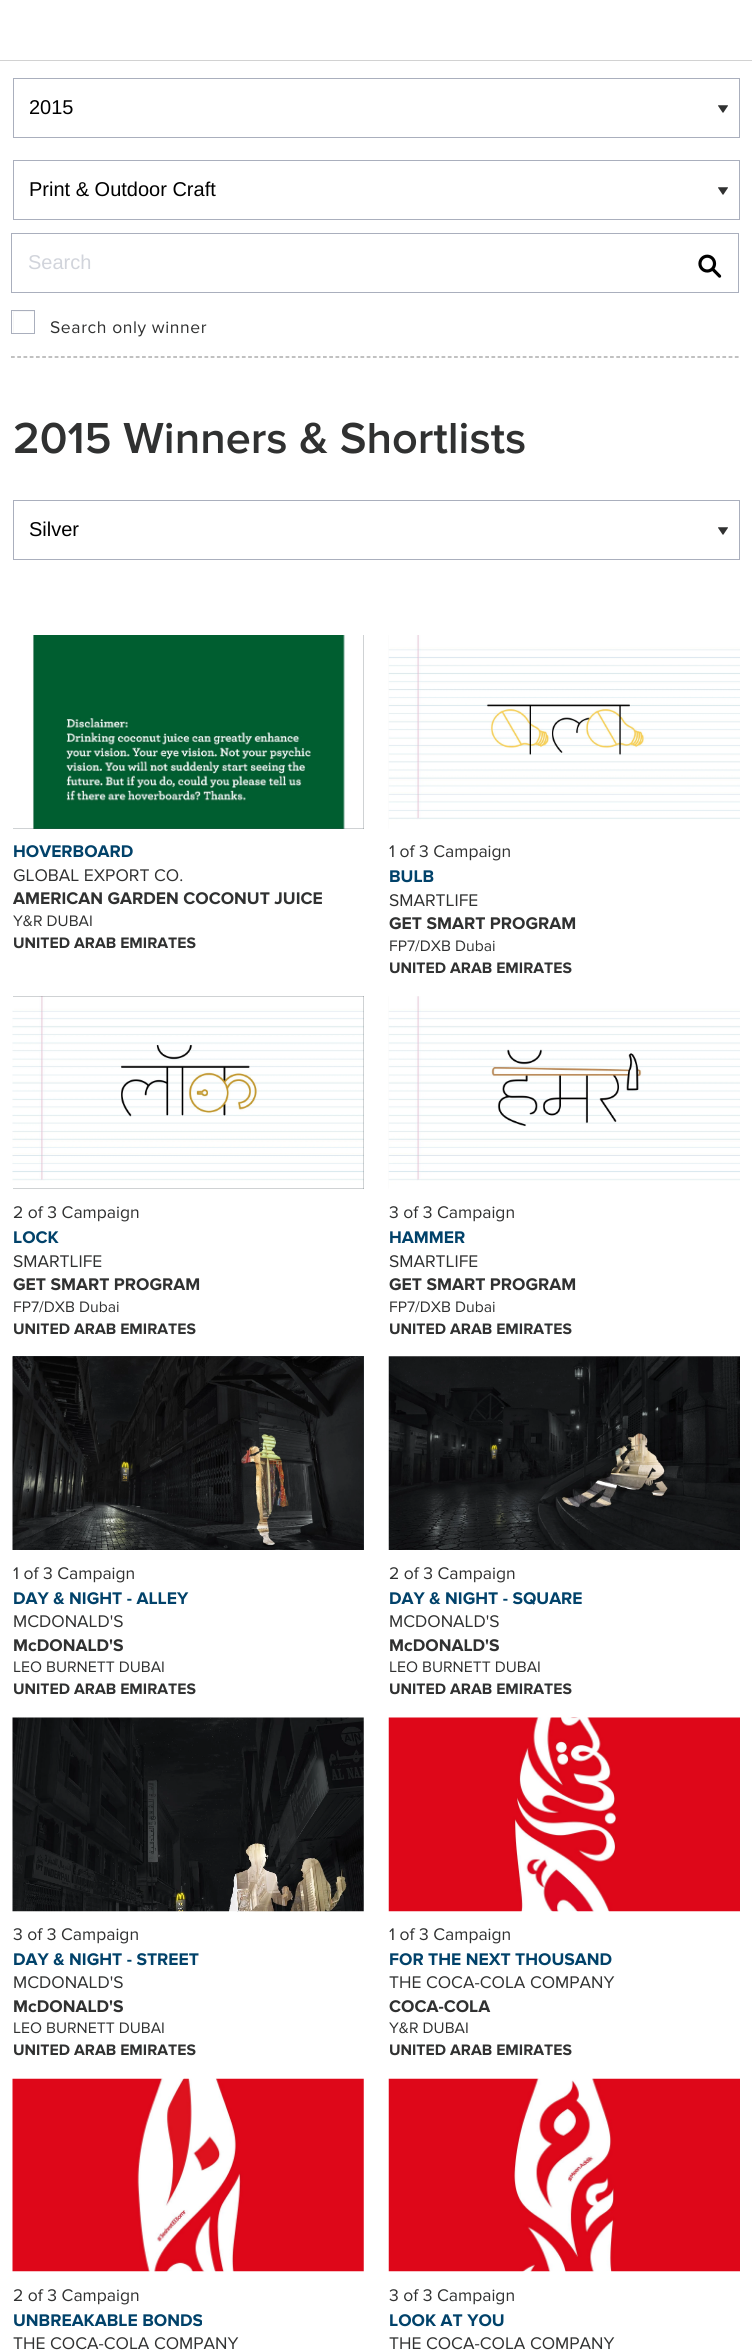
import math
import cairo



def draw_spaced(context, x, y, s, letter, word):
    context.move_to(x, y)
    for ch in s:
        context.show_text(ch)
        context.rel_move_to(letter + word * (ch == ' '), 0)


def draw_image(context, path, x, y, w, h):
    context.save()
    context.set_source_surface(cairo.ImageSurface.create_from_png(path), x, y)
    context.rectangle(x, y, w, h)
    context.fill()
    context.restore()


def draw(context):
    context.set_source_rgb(1, 1, 1)
    context.paint()
    context.set_source_rgb(210 / 255, 210 / 255, 210 / 255)
    context.rectangle(0, 60, 752, 1)
    context.fill()
    context.rectangle(13.5, 78.5, 726, 59)
    context.set_source_rgb(170 / 255, 175 / 255, 189 / 255)
    context.set_line_width(1)
    context.stroke()
    context.rectangle(13.5, 160.5, 726, 59)
    context.stroke()
    context.new_path()
    context.move_to(11, 357)
    context.line_to(739, 357)
    context.set_source_rgb(153 / 255, 153 / 255, 153 / 255)
    context.set_line_width(1.2)
    context.set_dash([3.75, 2.49])
    context.stroke()
    context.rectangle(11.5, 233.5, 727, 59)
    context.set_source_rgb(170 / 255, 175 / 255, 189 / 255)
    context.set_line_width(1)
    context.set_dash([])
    context.stroke()
    draw_image(context, "images/1.png", 698, 254, 24, 24)
    context.save()
    context.rectangle(13, 311, 21, 22)
    context.clip()
    context.set_source_rgb(247 / 255, 247 / 255, 247 / 255)
    context.set_fill_rule(cairo.FillRule.EVEN_ODD)
    context.new_path()
    context.move_to(-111, 188)
    context.line_to(158, 188)
    context.line_to(158, 456)
    context.line_to(-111, 456)
    context.close_path()
    context.move_to(14, 312)
    context.line_to(35, 312)
    context.line_to(35, 334)
    context.line_to(14, 334)
    context.close_path()
    context.fill()
    context.restore()
    context.rectangle(11.5, 310.5, 23, 23)
    context.stroke()
    context.rectangle(13.5, 500.5, 726, 59)
    context.stroke()
    context.set_source_rgb(65 / 255, 77 / 255, 84 / 255)
    context.rectangle(13, 635, 351, 194)
    context.fill()
    draw_image(context, "images/2.png", 13, 635, 351, 194)
    draw_image(context, "images/3.png", 388, 635, 352, 194)
    context.rectangle(13, 996, 351, 193)
    context.fill()
    draw_image(context, "images/4.png", 12, 996, 352, 193)
    draw_image(context, "images/5.png", 388, 996, 352, 193)
    context.rectangle(13, 1356, 351, 194)
    context.fill()
    draw_image(context, "images/6.png", 12, 1356, 352, 194)
    draw_image(context, "images/7.png", 388, 1356, 352, 194)
    draw_image(context, "images/8.png", 12, 1717, 352, 195)
    draw_image(context, "images/9.png", 388, 1717, 352, 195)
    draw_image(context, "images/10.png", 12, 2078, 352, 194)
    draw_image(context, "images/11.png", 388, 2078, 352, 194)
    context.select_font_face("Liberation Sans")
    context.set_font_size(20)
    context.set_source_rgb(0, 0, 0)
    context.move_to(29, 114)
    context.show_text("2015")
    context.select_font_face("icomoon")
    context.set_font_size(10)
    context.set_source_rgb(48 / 255, 49 / 255, 49 / 255)
    context.save()
    context.translate(718, 104)
    context.rotate(90 * math.pi / 180)
    context.move_to(0, 0)
    context.show_text("9")
    context.restore()
    context.select_font_face("Liberation Sans")
    context.set_font_size(20)
    context.set_source_rgb(0, 0, 0)
    context.move_to(29, 196)
    context.show_text("Print & Outdoor Craft")
    context.select_font_face("icomoon")
    context.set_font_size(10)
    context.set_source_rgb(48 / 255, 49 / 255, 49 / 255)
    context.save()
    context.translate(718, 186)
    context.rotate(90 * math.pi / 180)
    context.move_to(0, 0)
    context.show_text("9")
    context.restore()
    context.select_font_face("Liberation Sans")
    context.set_font_size(20)
    context.set_source_rgb(209 / 255, 212 / 255, 219 / 255)
    context.move_to(28, 269)
    context.show_text("Search")
    context.select_font_face("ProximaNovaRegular")
    context.set_font_size(17.5)
    context.set_source_rgb(48 / 255, 49 / 255, 49 / 255)
    draw_spaced(context, 50, 333, "Search only winner", 0.6, 0)
    context.select_font_face("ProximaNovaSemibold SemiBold")
    context.set_font_size(45)
    context.move_to(13, 453)
    context.show_text("2015 Winners & Shortlists")
    context.select_font_face("Liberation Sans")
    context.set_font_size(20)
    context.set_source_rgb(0, 0, 0)
    context.move_to(29, 536)
    context.show_text("Silver")
    context.select_font_face("icomoon")
    context.set_font_size(10)
    context.set_source_rgb(48 / 255, 49 / 255, 49 / 255)
    context.save()
    context.translate(718, 526)
    context.rotate(90 * math.pi / 180)
    context.move_to(0, 0)
    context.show_text("9")
    context.restore()
    context.select_font_face("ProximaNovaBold", cairo.FontSlant.NORMAL, cairo.FontWeight.BOLD)
    context.set_font_size(17.5)
    context.set_source_rgb(1 / 255, 66 / 255, 106 / 255)
    context.move_to(13, 857)
    context.show_text("HOVERBOARD")
    context.select_font_face("ProximaNovaRegular")
    context.set_source_rgb(48 / 255, 49 / 255, 49 / 255)
    context.move_to(13, 881)
    context.show_text("GLOBAL EXPORT CO.")
    context.select_font_face("ProximaNovaBold", cairo.FontSlant.NORMAL, cairo.FontWeight.BOLD)
    context.move_to(13, 904)
    context.show_text("AMERICAN GARDEN COCONUT JUICE")
    context.select_font_face("ProximaNovaRegular")
    context.set_font_size(15.75)
    context.move_to(13, 926)
    context.show_text("Y&R DUBAI")
    context.select_font_face("ProximaNovaBold", cairo.FontSlant.NORMAL, cairo.FontWeight.BOLD)
    context.move_to(13, 948)
    context.show_text("UNITED ARAB EMIRATES")
    context.select_font_face("ProximaNovaRegular")
    context.set_font_size(17.5)
    context.move_to(389, 857)
    context.show_text("1 of 3 Campaign")
    context.select_font_face("ProximaNovaBold", cairo.FontSlant.NORMAL, cairo.FontWeight.BOLD)
    context.set_source_rgb(1 / 255, 66 / 255, 106 / 255)
    context.move_to(389, 882)
    context.show_text("BULB")
    context.select_font_face("ProximaNovaRegular")
    context.set_source_rgb(48 / 255, 49 / 255, 49 / 255)
    context.move_to(389, 906)
    context.show_text("SMARTLIFE")
    context.select_font_face("ProximaNovaBold", cairo.FontSlant.NORMAL, cairo.FontWeight.BOLD)
    context.move_to(389, 929)
    context.show_text("GET SMART PROGRAM")
    context.select_font_face("ProximaNovaRegular")
    context.set_font_size(15.75)
    context.move_to(389, 951)
    context.show_text("FP7/DXB Dubai")
    context.select_font_face("ProximaNovaBold", cairo.FontSlant.NORMAL, cairo.FontWeight.BOLD)
    context.move_to(389, 973)
    context.show_text("UNITED ARAB EMIRATES")
    context.select_font_face("ProximaNovaRegular")
    context.set_font_size(17.5)
    context.move_to(13, 1218)
    context.show_text("2 of 3 Campaign")
    context.select_font_face("ProximaNovaBold", cairo.FontSlant.NORMAL, cairo.FontWeight.BOLD)
    context.set_source_rgb(1 / 255, 66 / 255, 106 / 255)
    context.move_to(13, 1243)
    context.show_text("LOCK")
    context.select_font_face("ProximaNovaRegular")
    context.set_source_rgb(48 / 255, 49 / 255, 49 / 255)
    context.move_to(13, 1267)
    context.show_text("SMARTLIFE")
    context.select_font_face("ProximaNovaBold", cairo.FontSlant.NORMAL, cairo.FontWeight.BOLD)
    context.move_to(13, 1290)
    context.show_text("GET SMART PROGRAM")
    context.select_font_face("ProximaNovaRegular")
    context.set_font_size(15.75)
    context.move_to(13, 1312)
    context.show_text("FP7/DXB Dubai")
    context.select_font_face("ProximaNovaBold", cairo.FontSlant.NORMAL, cairo.FontWeight.BOLD)
    context.move_to(13, 1334)
    context.show_text("UNITED ARAB EMIRATES")
    context.select_font_face("ProximaNovaRegular")
    context.set_font_size(17.5)
    context.move_to(389, 1218)
    context.show_text("3 of 3 Campaign")
    context.select_font_face("ProximaNovaBold", cairo.FontSlant.NORMAL, cairo.FontWeight.BOLD)
    context.set_source_rgb(1 / 255, 66 / 255, 106 / 255)
    context.move_to(389, 1243)
    context.show_text("HAMMER")
    context.select_font_face("ProximaNovaRegular")
    context.set_source_rgb(48 / 255, 49 / 255, 49 / 255)
    context.move_to(389, 1267)
    context.show_text("SMARTLIFE")
    context.select_font_face("ProximaNovaBold", cairo.FontSlant.NORMAL, cairo.FontWeight.BOLD)
    context.move_to(389, 1290)
    context.show_text("GET SMART PROGRAM")
    context.select_font_face("ProximaNovaRegular")
    context.set_font_size(15.75)
    context.move_to(389, 1312)
    context.show_text("FP7/DXB Dubai")
    context.select_font_face("ProximaNovaBold", cairo.FontSlant.NORMAL, cairo.FontWeight.BOLD)
    context.move_to(389, 1334)
    context.show_text("UNITED ARAB EMIRATES")
    context.select_font_face("ProximaNovaRegular")
    context.set_font_size(17.5)
    context.move_to(13, 1579)
    context.show_text("1 of 3 Campaign")
    context.select_font_face("ProximaNovaBold", cairo.FontSlant.NORMAL, cairo.FontWeight.BOLD)
    context.set_source_rgb(1 / 255, 66 / 255, 106 / 255)
    context.move_to(13, 1604)
    context.show_text("DAY & NIGHT - ALLEY")
    context.select_font_face("ProximaNovaRegular")
    context.set_source_rgb(48 / 255, 49 / 255, 49 / 255)
    context.move_to(13, 1627)
    context.show_text("MCDONALD'S")
    context.select_font_face("ProximaNovaBold", cairo.FontSlant.NORMAL, cairo.FontWeight.BOLD)
    context.move_to(13, 1651)
    context.show_text("McDONALD'S")
    context.select_font_face("ProximaNovaRegular")
    context.set_font_size(15.75)
    context.move_to(13, 1672)
    context.show_text("LEO BURNETT DUBAI")
    context.select_font_face("ProximaNovaBold", cairo.FontSlant.NORMAL, cairo.FontWeight.BOLD)
    context.move_to(13, 1694)
    context.show_text("UNITED ARAB EMIRATES")
    context.select_font_face("ProximaNovaRegular")
    context.set_font_size(17.5)
    context.move_to(389, 1579)
    context.show_text("2 of 3 Campaign")
    context.select_font_face("ProximaNovaBold", cairo.FontSlant.NORMAL, cairo.FontWeight.BOLD)
    context.set_source_rgb(1 / 255, 66 / 255, 106 / 255)
    context.move_to(389, 1604)
    context.show_text("DAY & NIGHT - SQUARE")
    context.select_font_face("ProximaNovaRegular")
    context.set_source_rgb(48 / 255, 49 / 255, 49 / 255)
    context.move_to(389, 1627)
    context.show_text("MCDONALD'S")
    context.select_font_face("ProximaNovaBold", cairo.FontSlant.NORMAL, cairo.FontWeight.BOLD)
    context.move_to(389, 1651)
    context.show_text("McDONALD'S")
    context.select_font_face("ProximaNovaRegular")
    context.set_font_size(15.75)
    context.move_to(389, 1672)
    context.show_text("LEO BURNETT DUBAI")
    context.select_font_face("ProximaNovaBold", cairo.FontSlant.NORMAL, cairo.FontWeight.BOLD)
    context.move_to(389, 1694)
    context.show_text("UNITED ARAB EMIRATES")
    context.select_font_face("ProximaNovaRegular")
    context.set_font_size(17.5)
    context.move_to(13, 1940)
    context.show_text("3 of 3 Campaign")
    context.select_font_face("ProximaNovaBold", cairo.FontSlant.NORMAL, cairo.FontWeight.BOLD)
    context.set_source_rgb(1 / 255, 66 / 255, 106 / 255)
    context.move_to(13, 1965)
    context.show_text("DAY & NIGHT - STREET")
    context.select_font_face("ProximaNovaRegular")
    context.set_source_rgb(48 / 255, 49 / 255, 49 / 255)
    context.move_to(13, 1988)
    context.show_text("MCDONALD'S")
    context.select_font_face("ProximaNovaBold", cairo.FontSlant.NORMAL, cairo.FontWeight.BOLD)
    context.move_to(13, 2012)
    context.show_text("McDONALD'S")
    context.select_font_face("ProximaNovaRegular")
    context.set_font_size(15.75)
    context.move_to(13, 2033)
    context.show_text("LEO BURNETT DUBAI")
    context.select_font_face("ProximaNovaBold", cairo.FontSlant.NORMAL, cairo.FontWeight.BOLD)
    context.move_to(13, 2055)
    context.show_text("UNITED ARAB EMIRATES")
    context.select_font_face("ProximaNovaRegular")
    context.set_font_size(17.5)
    context.move_to(389, 1940)
    context.show_text("1 of 3 Campaign")
    context.select_font_face("ProximaNovaBold", cairo.FontSlant.NORMAL, cairo.FontWeight.BOLD)
    context.set_source_rgb(1 / 255, 66 / 255, 106 / 255)
    context.move_to(389, 1965)
    context.show_text("FOR THE NEXT THOUSAND")
    context.select_font_face("ProximaNovaRegular")
    context.set_source_rgb(48 / 255, 49 / 255, 49 / 255)
    context.move_to(389, 1988)
    context.show_text("THE COCA-COLA COMPANY")
    context.select_font_face("ProximaNovaBold", cairo.FontSlant.NORMAL, cairo.FontWeight.BOLD)
    context.move_to(389, 2012)
    context.show_text("COCA-COLA")
    context.select_font_face("ProximaNovaRegular")
    context.set_font_size(15.75)
    context.move_to(389, 2033)
    context.show_text("Y&R DUBAI")
    context.select_font_face("ProximaNovaBold", cairo.FontSlant.NORMAL, cairo.FontWeight.BOLD)
    context.move_to(389, 2055)
    context.show_text("UNITED ARAB EMIRATES")
    context.select_font_face("ProximaNovaRegular")
    context.set_font_size(17.5)
    context.move_to(13, 2301)
    context.show_text("2 of 3 Campaign")
    context.select_font_face("ProximaNovaBold", cairo.FontSlant.NORMAL, cairo.FontWeight.BOLD)
    context.set_source_rgb(1 / 255, 66 / 255, 106 / 255)
    context.move_to(13, 2326)
    context.show_text("UNBREAKABLE BONDS")
    context.select_font_face("ProximaNovaRegular")
    context.set_source_rgb(48 / 255, 49 / 255, 49 / 255)
    context.move_to(13, 2349)
    context.show_text("THE COCA-COLA COMPANY")
    context.move_to(389, 2301)
    context.show_text("3 of 3 Campaign")
    context.select_font_face("ProximaNovaBold", cairo.FontSlant.NORMAL, cairo.FontWeight.BOLD)
    context.set_source_rgb(1 / 255, 66 / 255, 106 / 255)
    context.move_to(389, 2326)
    context.show_text("LOOK AT YOU")
    context.select_font_face("ProximaNovaRegular")
    context.set_source_rgb(48 / 255, 49 / 255, 49 / 255)
    context.move_to(389, 2349)
    context.show_text("THE COCA-COLA COMPANY")


surface = cairo.ImageSurface(cairo.Format.RGB24, 752, 2351)
context = cairo.Context(surface)
options = cairo.FontOptions()
options.set_hint_metrics(cairo.HintMetrics.OFF)
options.set_hint_style(cairo.HintStyle.NONE)
context.set_font_options(options)
context.set_miter_limit(4)
draw(context)
surface.write_to_png("out.png")
